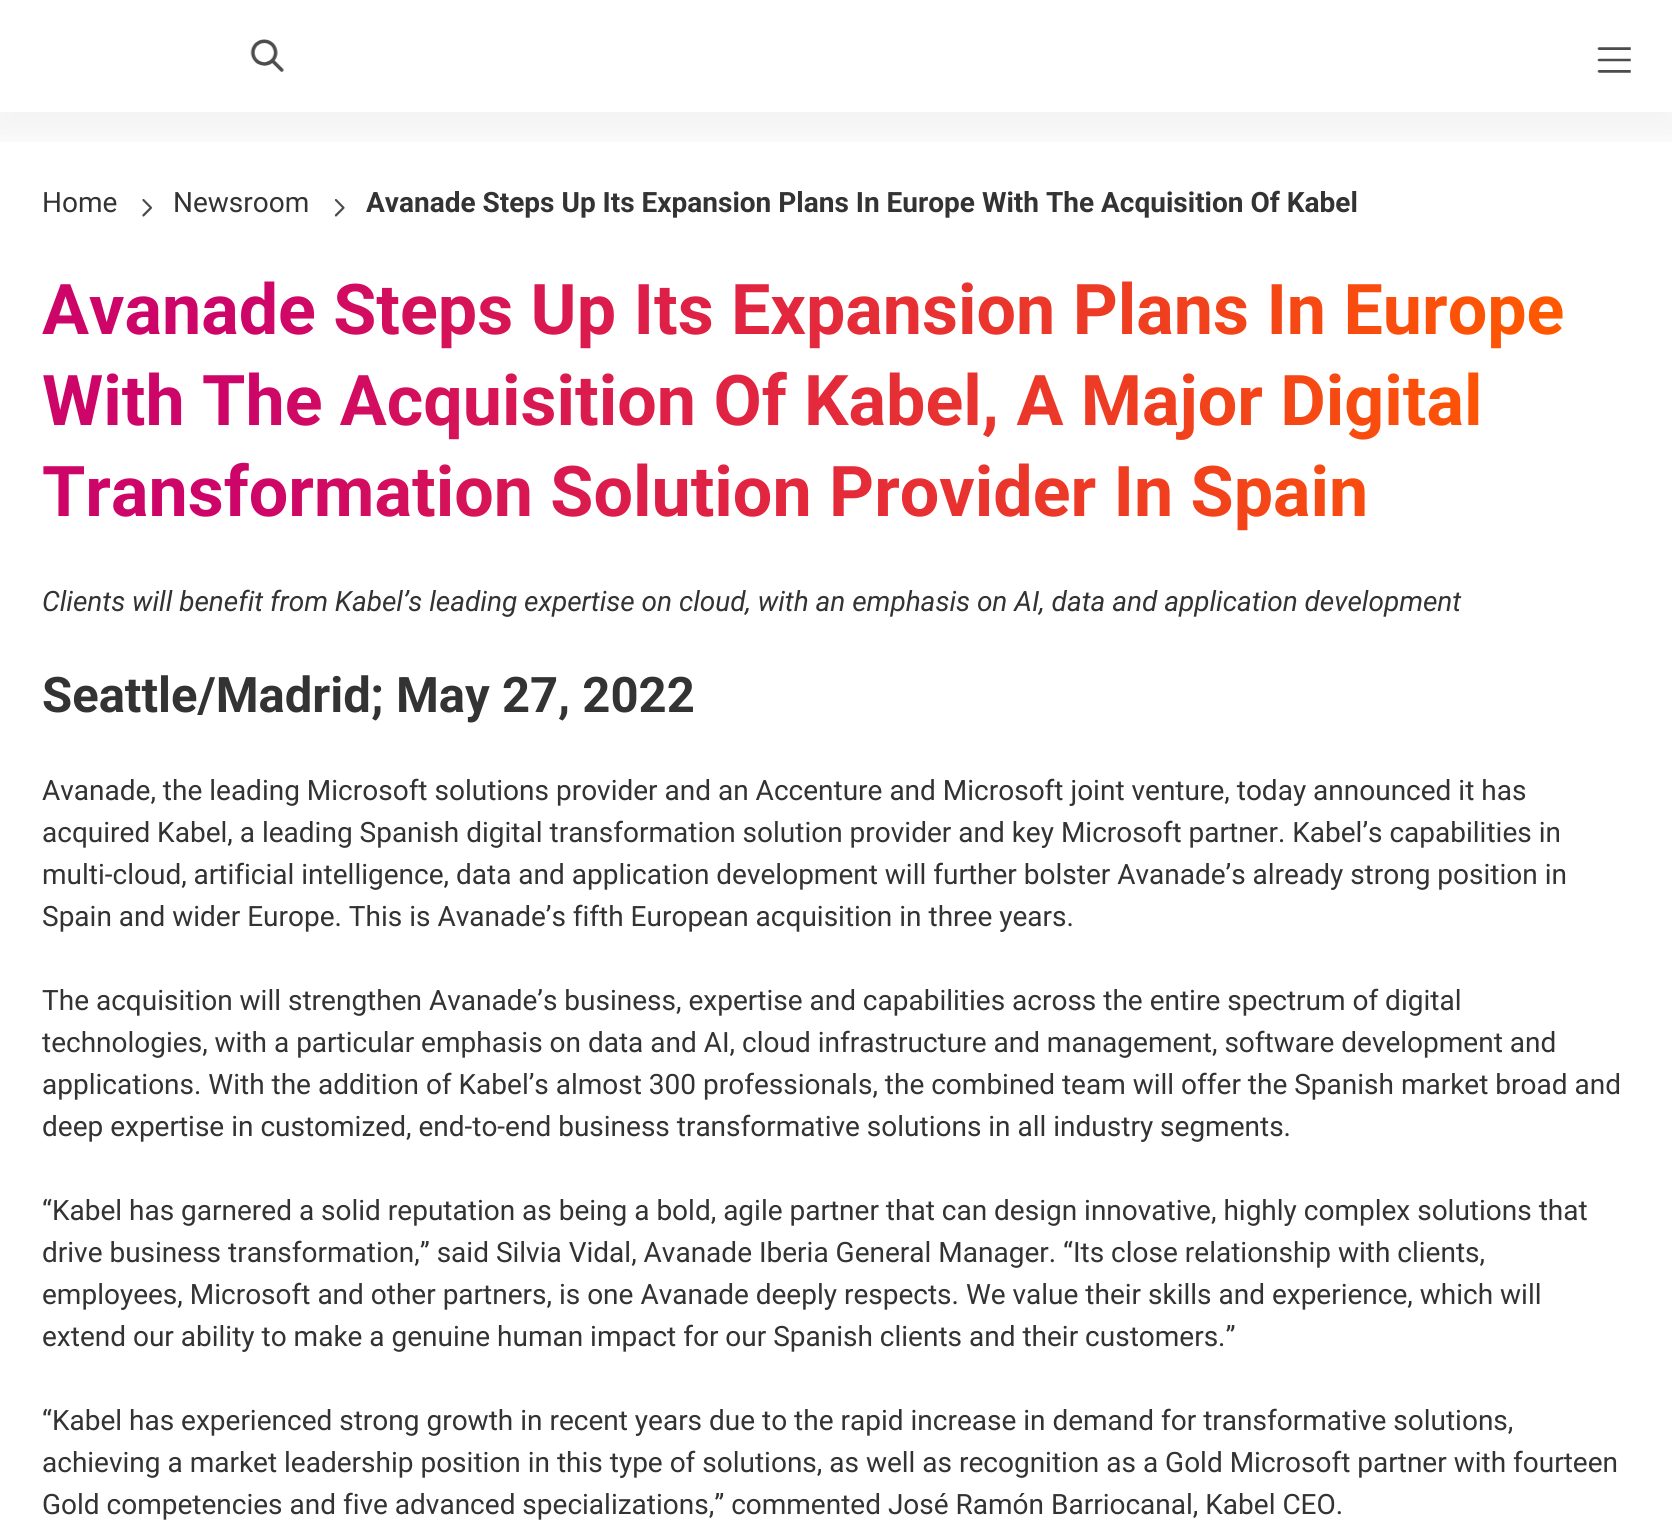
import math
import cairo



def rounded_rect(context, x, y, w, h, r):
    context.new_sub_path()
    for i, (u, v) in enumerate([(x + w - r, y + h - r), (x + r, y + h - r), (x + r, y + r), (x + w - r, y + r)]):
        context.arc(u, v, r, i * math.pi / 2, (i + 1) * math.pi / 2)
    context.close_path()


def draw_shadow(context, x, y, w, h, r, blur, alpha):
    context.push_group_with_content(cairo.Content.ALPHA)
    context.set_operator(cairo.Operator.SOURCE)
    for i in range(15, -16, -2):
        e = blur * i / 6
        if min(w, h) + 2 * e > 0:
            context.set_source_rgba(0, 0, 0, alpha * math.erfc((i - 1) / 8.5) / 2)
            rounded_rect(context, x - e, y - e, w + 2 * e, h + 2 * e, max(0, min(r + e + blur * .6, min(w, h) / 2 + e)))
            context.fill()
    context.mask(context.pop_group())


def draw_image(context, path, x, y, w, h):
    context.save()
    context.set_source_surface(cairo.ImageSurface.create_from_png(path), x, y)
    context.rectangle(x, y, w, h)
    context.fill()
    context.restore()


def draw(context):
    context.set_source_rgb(1, 1, 1)
    context.paint()
    context.save()
    context.rectangle(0, 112, 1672, 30)
    context.clip()
    context.set_source_rgb(0, 0, 0)
    draw_shadow(context, -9, 9, 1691, 129, 0, 17.5, 0.05)
    context.restore()
    draw_image(context, "images/1.png", 250, 39, 34, 33)
    draw_image(context, "images/2.png", 1597, 47, 34, 26)
    draw_image(context, "images/3.png", 142, 199, 10, 18)
    draw_image(context, "images/4.png", 334, 199, 11, 18)
    context.select_font_face("Roboto")
    context.set_font_size(28)
    context.set_source_rgb(51 / 255, 51 / 255, 51 / 255)
    context.move_to(42, 212)
    context.show_text("Home")
    context.move_to(173, 212)
    context.show_text("Newsroom")
    context.select_font_face("Roboto", cairo.FontSlant.NORMAL, cairo.FontWeight.BOLD)
    context.move_to(366, 212)
    context.show_text("Avanade Steps Up Its Expansion Plans In Europe With The Acquisition Of Kabel")
    context.set_font_size(70)
    gradient = cairo.LinearGradient(42, 424, 1631, 423)
    gradient.add_color_stop_rgba(0.13, 206 / 255, 5 / 255, 105 / 255, 1)
    gradient.add_color_stop_rgba(0.95, 1, 88 / 255, 0, 1)
    context.set_source(gradient)
    context.move_to(42, 334)
    context.show_text("Avanade Steps Up Its Expansion Plans In Europe")
    context.move_to(42, 425)
    context.show_text("With The Acquisition Of Kabel, A Major Digital")
    context.move_to(42, 516)
    context.show_text("Transformation Solution Provider In Spain")
    context.select_font_face("Roboto", cairo.FontSlant.ITALIC)
    context.set_font_size(28)
    context.set_source_rgb(51 / 255, 51 / 255, 51 / 255)
    context.move_to(42, 611)
    context.show_text("Clients will benefit from Kabel’s leading expertise on cloud, with an emphasis on AI, data and application development")
    context.select_font_face("Roboto", cairo.FontSlant.NORMAL, cairo.FontWeight.BOLD)
    context.set_font_size(49)
    context.move_to(42, 712)
    context.show_text("Seattle/Madrid; May 27, 2022")
    context.select_font_face("Roboto")
    context.set_font_size(28)
    context.move_to(42, 800)
    context.show_text("Avanade, the leading Microsoft solutions provider and an Accenture and Microsoft joint venture, today announced it has")
    context.move_to(42, 842)
    context.show_text("acquired Kabel, a leading Spanish digital transformation solution provider and key Microsoft partner. Kabel’s capabilities in")
    context.move_to(42, 884)
    context.show_text("multi-cloud, artificial intelligence, data and application development will further bolster Avanade’s already strong position in")
    context.move_to(42, 926)
    context.show_text("Spain and wider Europe. This is Avanade’s fifth European acquisition in three years.")
    context.move_to(42, 1010)
    context.show_text("The acquisition will strengthen Avanade’s business, expertise and capabilities across the entire spectrum of digital")
    context.move_to(42, 1052)
    context.show_text("technologies, with a particular emphasis on data and AI, cloud infrastructure and management, software development and")
    context.move_to(42, 1094)
    context.show_text("applications. With the addition of Kabel’s almost 300 professionals, the combined team will offer the Spanish market broad and")
    context.move_to(42, 1136)
    context.show_text("deep expertise in customized, end-to-end business transformative solutions in all industry segments.")
    context.move_to(42, 1220)
    context.show_text("“Kabel has garnered a solid reputation as being a bold, agile partner that can design innovative, highly complex solutions that")
    context.move_to(42, 1262)
    context.show_text("drive business transformation,” said Silvia Vidal, Avanade Iberia General Manager. “Its close relationship with clients,")
    context.move_to(42, 1304)
    context.show_text("employees, Microsoft and other partners, is one Avanade deeply respects. We value their skills and experience, which will")
    context.move_to(42, 1346)
    context.show_text("extend our ability to make a genuine human impact for our Spanish clients and their customers.”")
    context.move_to(42, 1430)
    context.show_text("“Kabel has experienced strong growth in recent years due to the rapid increase in demand for transformative solutions,")
    context.move_to(42, 1472)
    context.show_text("achieving a market leadership position in this type of solutions, as well as recognition as a Gold Microsoft partner with fourteen")
    context.move_to(42, 1514)
    context.show_text("Gold competencies and five advanced specializations,” commented José Ramón Barriocanal, Kabel CEO.")


surface = cairo.ImageSurface(cairo.Format.RGB24, 1672, 1526)
context = cairo.Context(surface)
options = cairo.FontOptions()
options.set_hint_metrics(cairo.HintMetrics.OFF)
options.set_hint_style(cairo.HintStyle.NONE)
context.set_font_options(options)
context.set_miter_limit(4)
draw(context)
surface.write_to_png("out.png")
